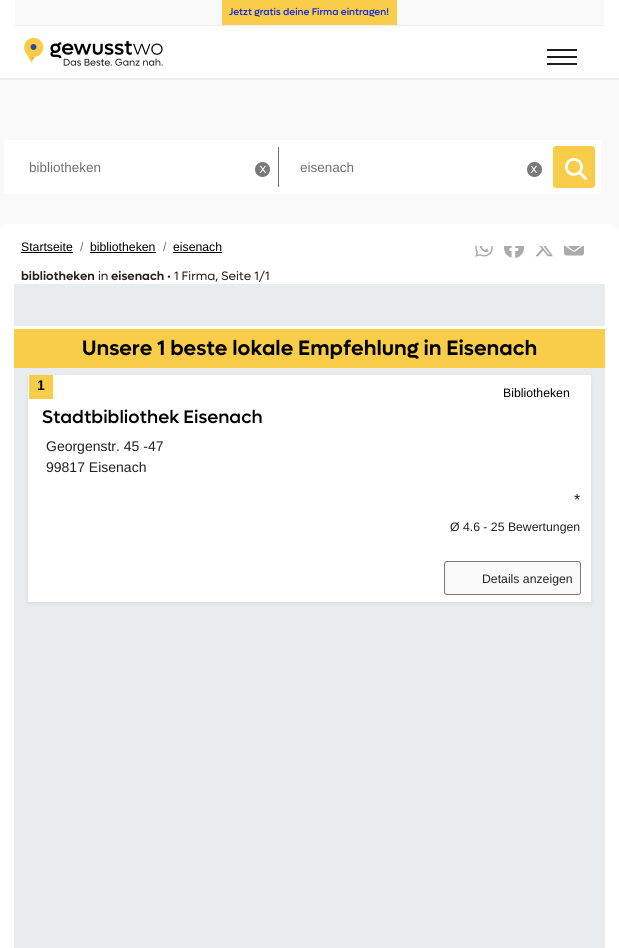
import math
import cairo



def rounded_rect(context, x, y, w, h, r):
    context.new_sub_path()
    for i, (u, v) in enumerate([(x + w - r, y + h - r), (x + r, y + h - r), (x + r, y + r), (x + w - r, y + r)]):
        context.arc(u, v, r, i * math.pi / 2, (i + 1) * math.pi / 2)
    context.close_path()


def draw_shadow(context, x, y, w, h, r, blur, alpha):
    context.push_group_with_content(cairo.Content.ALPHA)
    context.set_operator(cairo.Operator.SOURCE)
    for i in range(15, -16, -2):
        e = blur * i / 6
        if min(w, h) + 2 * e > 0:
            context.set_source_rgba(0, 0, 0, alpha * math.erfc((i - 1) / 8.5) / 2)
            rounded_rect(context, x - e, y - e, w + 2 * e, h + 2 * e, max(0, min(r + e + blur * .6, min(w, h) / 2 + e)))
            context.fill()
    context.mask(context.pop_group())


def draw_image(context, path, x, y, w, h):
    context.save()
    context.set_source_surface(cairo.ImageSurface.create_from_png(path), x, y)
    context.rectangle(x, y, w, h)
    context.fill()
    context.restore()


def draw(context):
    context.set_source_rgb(249 / 255, 249 / 255, 249 / 255)
    context.paint()
    context.set_source_rgb(1, 1, 1)
    context.rectangle(0, 0, 619, 78)
    context.fill()
    context.set_source_rgb(238 / 255, 238 / 255, 238 / 255)
    context.rectangle(0, 78, 619, 2)
    context.fill()
    context.set_source_rgb(249 / 255, 249 / 255, 249 / 255)
    context.rectangle(15, 0, 589, 25)
    context.fill()
    context.set_source_rgb(238 / 255, 238 / 255, 238 / 255)
    context.rectangle(15, 25, 589, 1)
    context.fill()
    context.set_source_rgb(249 / 255, 204 / 255, 73 / 255)
    context.rectangle(222, 0, 175, 25)
    context.fill()
    draw_image(context, "images/1.png", 24, 37, 139, 29)
    context.set_source_rgb(30 / 255, 30 / 255, 30 / 255)
    context.rectangle(547, 56, 30, 2)
    context.fill()
    context.rectangle(547, 49, 30, 2)
    context.fill()
    context.rectangle(547, 63, 30, 2)
    context.fill()
    context.set_source_rgb(1, 1, 1)
    rounded_rect(context, 4, 140, 597, 54, 3)
    context.fill()
    context.set_source_rgb(112 / 255, 112 / 255, 112 / 255)
    context.rectangle(278, 147, 1, 40)
    context.fill()
    context.set_source_rgb(121 / 255, 121 / 255, 121 / 255)
    context.arc(262.5, 169.5, 7.5, 0, 2 * math.pi)
    context.fill()
    context.arc(534.5, 169.5, 7.5, 0, 2 * math.pi)
    context.fill()
    context.set_source_rgb(249 / 255, 204 / 255, 73 / 255)
    rounded_rect(context, 553, 146, 42, 42, 3)
    context.fill()
    draw_image(context, "images/2.png", 565, 158, 22, 22)
    context.set_source_rgb(1, 1, 1)
    rounded_rect(context, 0, 224, 619, 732, 8)
    context.fill()
    context.set_source_rgb(0, 0, 0)
    context.rectangle(21, 252, 52, 1)
    context.fill()
    context.rectangle(90, 252, 66, 1)
    context.fill()
    context.rectangle(173, 252, 49, 1)
    context.fill()
    draw_image(context, "images/3.png", 475, 246, 18, 11)
    draw_image(context, "images/4.png", 504, 246, 20, 12)
    draw_image(context, "images/5.png", 535, 246, 18, 11)
    draw_image(context, "images/6.png", 564, 246, 20, 10)
    context.set_source_rgb(233 / 255, 236 / 255, 239 / 255)
    context.rectangle(14, 284, 591, 42)
    context.fill()
    context.set_source_rgb(249 / 255, 204 / 255, 73 / 255)
    context.rectangle(14, 329, 591, 39)
    context.fill()
    context.set_source_rgb(233 / 255, 236 / 255, 239 / 255)
    context.rectangle(14, 368, 591, 580)
    context.fill()
    context.set_source_rgb(0, 0, 0)
    draw_shadow(context, 28, 377, 563, 227, 0, 2, 0.07)
    context.set_source_rgb(1, 1, 1)
    context.rectangle(28, 375, 563, 227)
    context.fill()
    context.set_source_rgb(249 / 255, 204 / 255, 73 / 255)
    context.rectangle(29, 375, 24, 24)
    context.fill()
    context.set_source_rgb(249 / 255, 249 / 255, 249 / 255)
    rounded_rect(context, 444.5, 561.5, 136, 33, 2.5)
    context.fill_preserve()
    context.set_source_rgb(121 / 255, 121 / 255, 121 / 255)
    context.set_line_width(1)
    context.stroke()
    context.select_font_face("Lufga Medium")
    context.set_font_size(9.75)
    context.set_source_rgb(18 / 255, 39 / 255, 224 / 255)
    context.move_to(229, 15)
    context.show_text("Jetzt gratis deine Firma eintragen!")
    context.select_font_face("Liberation Sans")
    context.set_font_size(13.5)
    context.set_source_rgb(112 / 255, 112 / 255, 112 / 255)
    context.move_to(29, 172)
    context.show_text("bibliotheken")
    context.select_font_face("DejaVu Sans Mono")
    context.set_font_size(13)
    context.set_source_rgb(1, 1, 1)
    context.move_to(259, 173)
    context.show_text("x")
    context.select_font_face("Liberation Sans")
    context.set_font_size(13.5)
    context.set_source_rgb(112 / 255, 112 / 255, 112 / 255)
    context.move_to(300, 172)
    context.show_text("eisenach")
    context.select_font_face("DejaVu Sans Mono")
    context.set_font_size(13)
    context.set_source_rgb(1, 1, 1)
    context.move_to(530, 173)
    context.show_text("x")
    context.select_font_face("Liberation Sans")
    context.set_font_size(12.25)
    context.set_source_rgb(0, 0, 0)
    context.move_to(21, 251)
    context.show_text("Startseite")
    context.set_source_rgb(108 / 255, 117 / 255, 125 / 255)
    context.move_to(80, 251)
    context.show_text("/")
    context.set_source_rgb(0, 0, 0)
    context.move_to(90, 251)
    context.show_text("bibliotheken")
    context.set_source_rgb(108 / 255, 117 / 255, 125 / 255)
    context.move_to(163, 251)
    context.show_text("/")
    context.set_source_rgb(0, 0, 0)
    context.move_to(173, 251)
    context.show_text("eisenach")
    context.select_font_face("Lufga SemiBold")
    context.set_source_rgb(39 / 255, 30 / 255, 30 / 255)
    context.move_to(21, 280)
    context.show_text("bibliotheken")
    context.select_font_face("Lufga")
    context.move_to(98, 280)
    context.show_text("in")
    context.select_font_face("Lufga SemiBold")
    context.move_to(111, 280)
    context.show_text("eisenach")
    context.select_font_face("Lufga")
    context.move_to(167, 280)
    context.show_text("• 1 Firma, Seite 1/1")
    context.select_font_face("Lufga SemiBold")
    context.set_font_size(21)
    context.set_source_rgb(0, 0, 0)
    context.move_to(82, 355)
    context.show_text("Unsere 1 beste lokale Empfehlung in Eisenach")
    context.select_font_face("Liberation Sans", cairo.FontSlant.NORMAL, cairo.FontWeight.BOLD)
    context.set_font_size(14)
    context.move_to(37, 390)
    context.show_text("1")
    context.select_font_face("Liberation Sans")
    context.set_font_size(12.25)
    context.move_to(503, 397)
    context.show_text("Bibliotheken")
    context.select_font_face("Lufga Medium")
    context.set_font_size(18.25)
    context.move_to(42, 423)
    context.show_text("Stadtbibliothek Eisenach")
    context.select_font_face("Liberation Sans")
    context.set_font_size(14)
    context.set_source_rgb(39 / 255, 30 / 255, 30 / 255)
    context.move_to(46, 451)
    context.show_text("Georgenstr. 45 -47")
    context.move_to(46, 472)
    context.show_text("99817 Eisenach")
    context.set_font_size(16)
    context.move_to(574, 505)
    context.show_text("*")
    context.set_font_size(12.25)
    context.move_to(450, 531)
    context.show_text("Ø 4.6 - 25 Bewertungen")
    context.set_source_rgb(33 / 255, 37 / 255, 41 / 255)
    context.move_to(482, 583)
    context.show_text("Details anzeigen")


surface = cairo.ImageSurface(cairo.Format.RGB24, 619, 948)
context = cairo.Context(surface)
options = cairo.FontOptions()
options.set_hint_metrics(cairo.HintMetrics.OFF)
options.set_hint_style(cairo.HintStyle.NONE)
context.set_font_options(options)
context.set_miter_limit(4)
draw(context)
surface.write_to_png("out.png")
